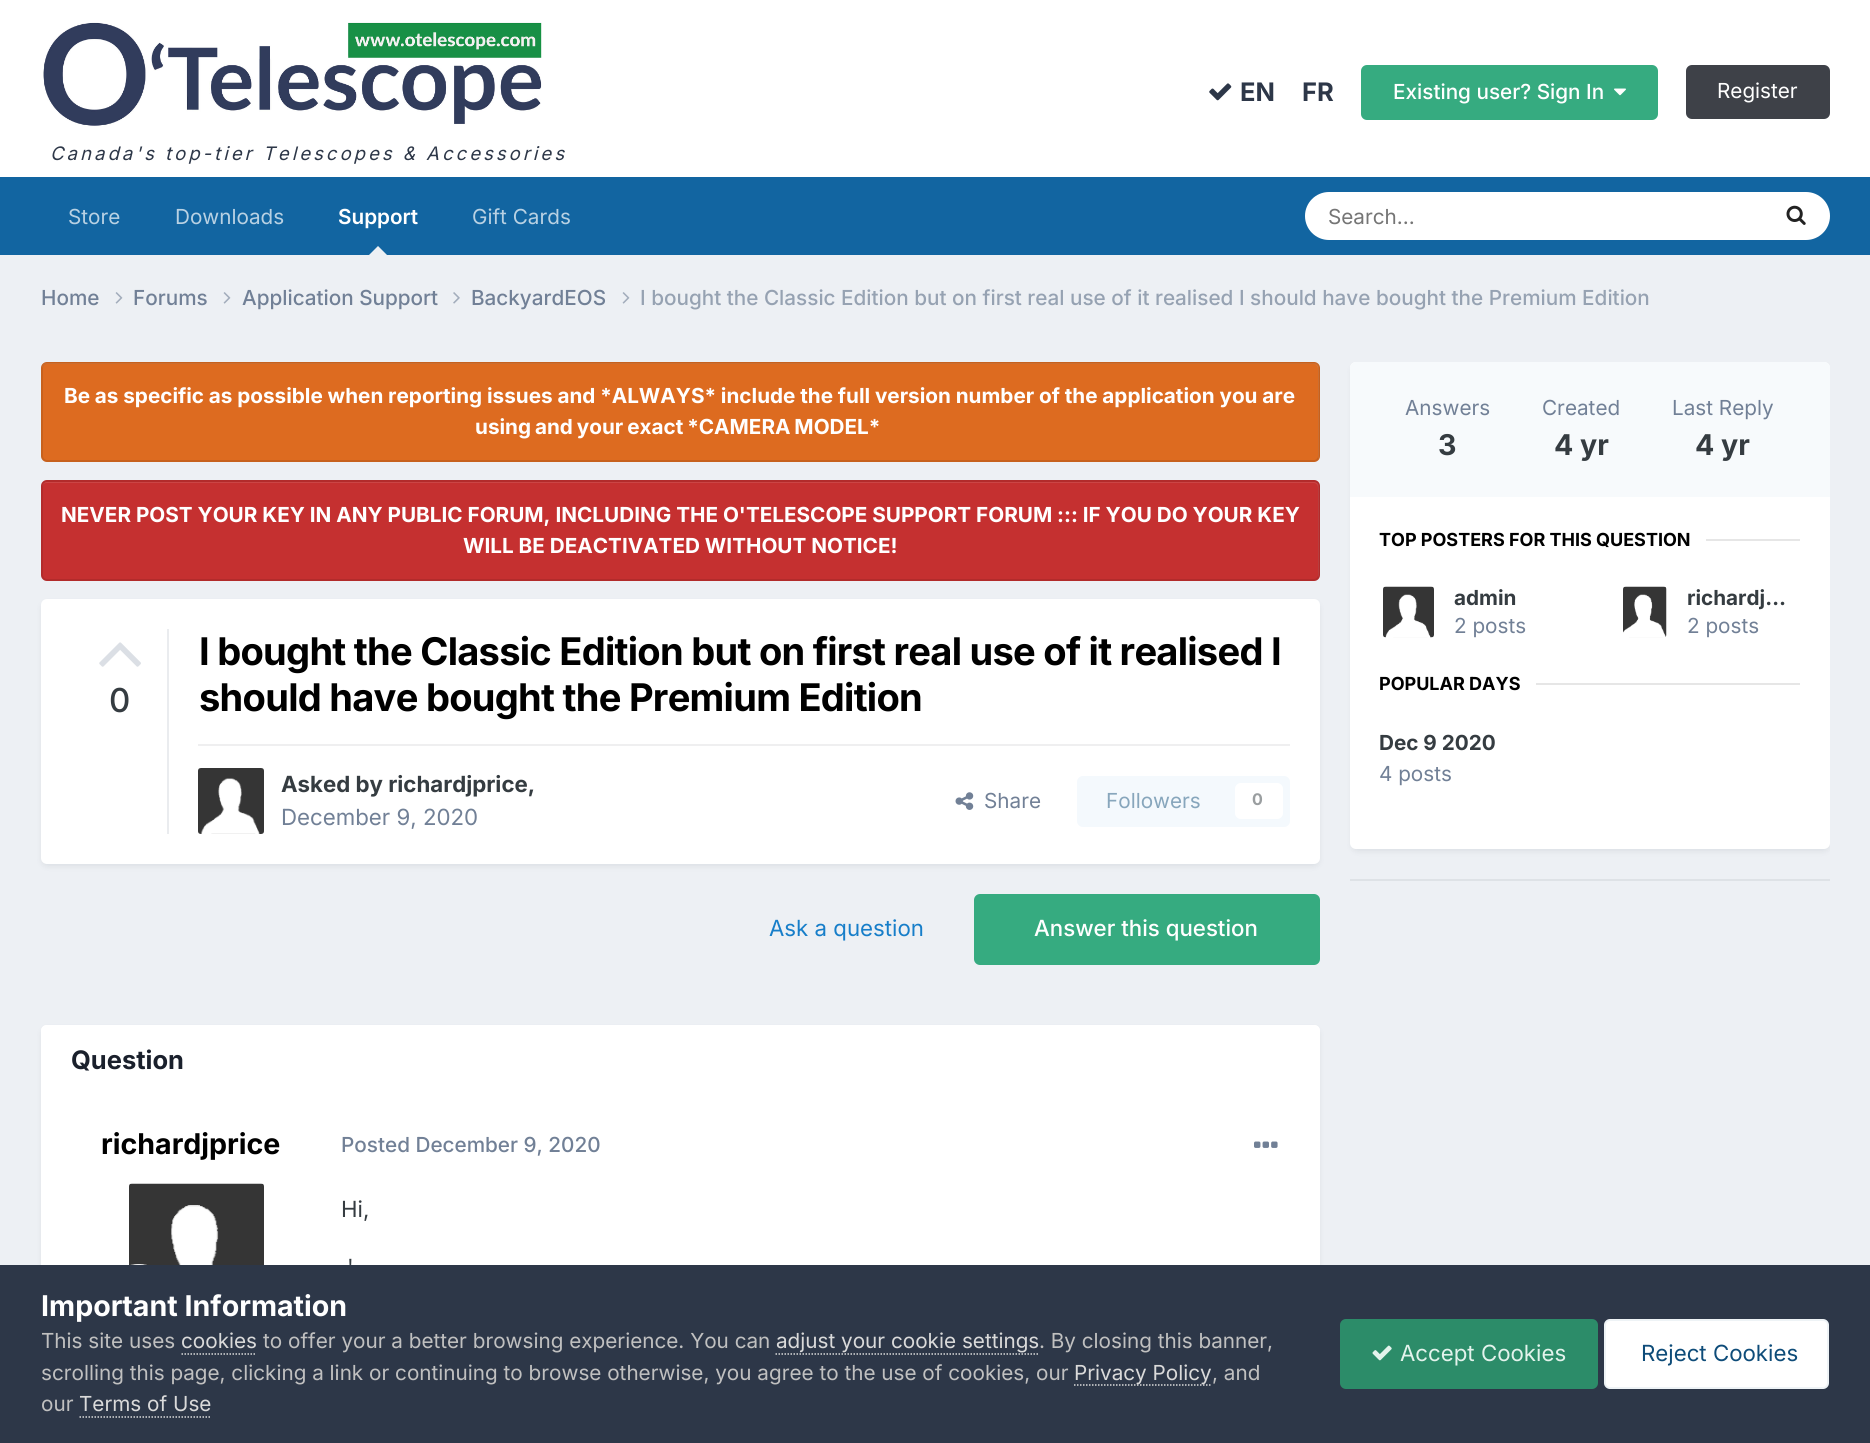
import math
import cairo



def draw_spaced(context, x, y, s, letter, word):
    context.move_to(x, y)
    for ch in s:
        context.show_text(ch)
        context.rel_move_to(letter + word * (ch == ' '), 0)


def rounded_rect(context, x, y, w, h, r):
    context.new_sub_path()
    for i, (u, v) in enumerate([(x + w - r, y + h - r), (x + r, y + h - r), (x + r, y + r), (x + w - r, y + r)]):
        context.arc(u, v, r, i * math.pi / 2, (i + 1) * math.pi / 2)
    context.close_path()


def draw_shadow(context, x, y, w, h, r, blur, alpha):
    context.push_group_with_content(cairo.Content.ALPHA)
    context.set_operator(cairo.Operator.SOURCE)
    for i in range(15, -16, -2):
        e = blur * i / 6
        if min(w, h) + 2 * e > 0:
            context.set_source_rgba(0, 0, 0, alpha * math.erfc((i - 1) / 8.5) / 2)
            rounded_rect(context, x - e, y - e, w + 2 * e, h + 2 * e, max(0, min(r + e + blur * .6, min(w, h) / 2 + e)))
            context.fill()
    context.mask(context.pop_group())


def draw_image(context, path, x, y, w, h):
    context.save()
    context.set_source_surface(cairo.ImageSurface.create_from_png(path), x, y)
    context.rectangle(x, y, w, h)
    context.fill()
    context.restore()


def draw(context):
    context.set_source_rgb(237 / 255, 240 / 255, 244 / 255)
    context.paint()
    context.set_source_rgb(1, 1, 1)
    context.rectangle(0, 0, 1870, 177)
    context.fill()
    draw_image(context, "images/1.png", 1209, 83, 23, 18)
    context.set_source_rgb(54 / 255, 171 / 255, 128 / 255)
    rounded_rect(context, 1361, 65, 297, 55, 6)
    context.fill()
    draw_image(context, "images/2.png", 1614, 88, 12, 8)
    context.set_source_rgb(62 / 255, 65 / 255, 72 / 255)
    rounded_rect(context, 1686, 65, 144, 54, 6)
    context.fill()
    draw_image(context, "images/3.png", 43, 22, 499, 105)
    context.set_source_rgb(18 / 255, 101 / 255, 161 / 255)
    context.rectangle(0, 177, 1870, 78)
    context.fill()
    context.set_source_rgb(237 / 255, 240 / 255, 244 / 255)
    context.new_path()
    context.move_to(387, 255)
    context.line_to(369, 255)
    context.line_to(378, 246)
    context.close_path()
    context.fill()
    context.set_source_rgb(1, 1, 1)
    rounded_rect(context, 1305, 192, 525, 48, 24)
    context.fill()
    draw_image(context, "images/4.png", 1786, 205, 20, 20)
    draw_image(context, "images/5.png", 115, 292, 8, 12)
    draw_image(context, "images/5.png", 223, 292, 8, 12)
    draw_image(context, "images/6.png", 453, 292, 7, 12)
    draw_image(context, "images/5.png", 622, 292, 8, 12)
    context.set_source_rgb(221 / 255, 107 / 255, 32 / 255)
    rounded_rect(context, 41, 362, 1279, 100, 6)
    context.fill()
    context.set_source_rgb(224 / 255, 122 / 255, 54 / 255)
    context.new_path()
    context.move_to(46, 364)
    context.line_to(1314, 364)
    context.curve_to(1316, 364, 1318, 367, 1318, 369)
    context.line_to(1318, 459)
    context.curve_to(1319, 458, 1319, 457, 1319, 456)
    context.line_to(1319, 368)
    context.curve_to(1319, 365, 1317, 363, 1314, 363)
    context.line_to(47, 363)
    context.curve_to(44, 363, 42, 365, 42, 368)
    context.line_to(42, 369)
    context.curve_to(42, 367, 44, 364, 46, 364)
    context.close_path()
    context.fill()
    rounded_rect(context, 42, 363, 1277, 98, 5)
    context.set_source_rgba(0, 0, 0, 0.1)
    context.stroke()
    context.set_source_rgb(197 / 255, 48 / 255, 48 / 255)
    rounded_rect(context, 41, 480, 1279, 101, 6)
    context.fill()
    context.set_source_rgb(203 / 255, 69 / 255, 69 / 255)
    context.new_path()
    context.move_to(46, 483)
    context.line_to(1314, 483)
    context.curve_to(1316, 483, 1318, 485, 1318, 488)
    context.line_to(1318, 577)
    context.curve_to(1319, 576, 1319, 575, 1319, 574)
    context.line_to(1319, 487)
    context.curve_to(1319, 484, 1317, 482, 1314, 482)
    context.line_to(47, 482)
    context.curve_to(44, 482, 42, 484, 42, 487)
    context.line_to(42, 488)
    context.curve_to(42, 485, 44, 483, 46, 483)
    context.close_path()
    context.fill()
    rounded_rect(context, 42, 481, 1277, 99, 5)
    context.set_source_rgba(0, 0, 0, 0.1)
    context.stroke()
    context.set_source_rgb(45 / 255, 55 / 255, 72 / 255)
    draw_shadow(context, 42, 603, 1277, 263, 5, 3, 0.1)
    context.set_source_rgb(1, 1, 1)
    rounded_rect(context, 41, 599, 1279, 265, 6)
    context.fill()
    context.set_source_rgb(234 / 255, 236 / 255, 239 / 255)
    context.rectangle(167, 629, 2, 205)
    context.fill()
    draw_image(context, "images/7.png", 99, 642, 42, 25)
    context.set_source_rgb(239 / 255, 239 / 255, 240 / 255)
    context.rectangle(198, 744, 1092, 2)
    context.fill()
    draw_image(context, "images/8.png", 198, 768, 66, 66)
    draw_image(context, "images/9.png", 955, 792, 19, 18)
    context.set_source_rgb(244 / 255, 249 / 255, 253 / 255)
    rounded_rect(context, 1077, 776, 213, 51, 6)
    context.fill()
    context.set_source_rgb(1, 1, 1)
    rounded_rect(context, 1235, 783, 48, 36, 6)
    context.fill()
    context.set_source_rgb(54 / 255, 171 / 255, 128 / 255)
    rounded_rect(context, 974, 894, 346, 71, 6)
    context.fill()
    context.set_source_rgb(45 / 255, 55 / 255, 72 / 255)
    draw_shadow(context, 42, 1029, 1277, 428, 5, 3, 0.1)
    context.set_source_rgb(1, 1, 1)
    rounded_rect(context, 41, 1025, 1279, 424, 6)
    context.fill()
    context.new_path()
    context.move_to(47, 1025)
    context.line_to(1314, 1025)
    context.curve_to(1317.5, 1025, 1320, 1027.5, 1320, 1031)
    context.line_to(1320, 1098)
    context.line_to(41, 1098)
    context.line_to(41, 1031)
    context.curve_to(41, 1027.5, 43.5, 1025, 47, 1025)
    context.close_path()
    context.fill()
    draw_image(context, "images/10.png", 129, 1183, 135, 82)
    draw_image(context, "images/11.png", 130, 1264, 17, 1)
    draw_image(context, "images/12.png", 1254, 1141, 24, 7)
    context.save()
    context.rectangle(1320, 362, 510, 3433)
    context.clip()
    context.set_source_rgb(45 / 255, 55 / 255, 72 / 255)
    draw_shadow(context, 1352, 366, 477, 485, 5, 3, 0.1)
    context.restore()
    rounded_rect(context, 1350, 362, 480, 487, 6)
    context.fill()
    context.set_source_rgb(247 / 255, 250 / 255, 252 / 255)
    context.new_path()
    context.move_to(1356, 362)
    context.line_to(1824, 362)
    context.curve_to(1827.5, 362, 1830, 364.5, 1830, 368)
    context.line_to(1830, 497)
    context.line_to(1350, 497)
    context.line_to(1350, 368)
    context.curve_to(1350, 364.5, 1352.5, 362, 1356, 362)
    context.close_path()
    context.fill()
    context.set_source_rgb(230 / 255, 230 / 255, 230 / 255)
    context.rectangle(1706, 539, 94, 2)
    context.fill()
    draw_image(context, "images/13.png", 1383, 586, 51, 52)
    draw_image(context, "images/14.png", 1623, 586, 44, 52)
    context.rectangle(1536, 683, 264, 2)
    context.fill()
    context.set_source_rgb(222 / 255, 226 / 255, 230 / 255)
    context.rectangle(1350, 879, 480, 2)
    context.fill()
    context.set_source_rgb(45 / 255, 55 / 255, 72 / 255)
    context.rectangle(0, 1265, 1870, 178)
    context.fill()
    context.new_path()
    context.move_to(181.5, 1354)
    context.line_to(256.5, 1354)
    context.set_source_rgb(218 / 255, 218 / 255, 218 / 255)
    context.set_line_width(1.5)
    context.set_dash([1.5, 1.5])
    context.stroke()
    context.new_path()
    context.move_to(775.5, 1354)
    context.line_to(1039.5, 1354)
    context.stroke()
    context.new_path()
    context.move_to(1074, 1385)
    context.line_to(1212, 1385)
    context.stroke()
    context.new_path()
    context.move_to(79.5, 1417)
    context.line_to(211.5, 1417)
    context.stroke()
    context.set_source_rgb(44 / 255, 140 / 255, 105 / 255)
    rounded_rect(context, 1340, 1319, 258, 70, 6)
    context.fill()
    draw_image(context, "images/15.png", 1372, 1345, 20, 16)
    context.set_source_rgb(1, 1, 1)
    rounded_rect(context, 1604, 1319, 225, 70, 6)
    context.fill()
    rounded_rect(context, 1605, 1320, 223, 68, 5)
    context.set_source_rgba(14 / 255, 76 / 255, 121 / 255, 0.07)
    context.set_line_width(2)
    context.set_dash([])
    context.stroke()
    context.select_font_face("Inter", cairo.FontSlant.NORMAL, cairo.FontWeight.BOLD)
    context.set_font_size(25.5)
    context.set_source_rgb(45 / 255, 55 / 255, 72 / 255)
    context.move_to(1240, 101)
    context.show_text("EN")
    context.move_to(1302, 101)
    context.show_text("FR")
    context.select_font_face("Inter Medium")
    context.set_font_size(20.7)
    context.set_source_rgb(1, 1, 1)
    context.move_to(1393, 99)
    context.show_text("Existing user? Sign In")
    context.select_font_face("Inter")
    context.move_to(1717, 98)
    context.show_text("Register")
    context.select_font_face("Inter", cairo.FontSlant.ITALIC)
    context.set_font_size(18.6)
    context.set_source_rgb(45 / 255, 55 / 255, 72 / 255)
    draw_spaced(context, 50, 160, "Canada's top-tier Telescopes & Accessories", 3, 0)
    context.select_font_face("Inter")
    context.set_font_size(20.7)
    context.set_source_rgb(184 / 255, 209 / 255, 227 / 255)
    context.move_to(68, 224)
    context.show_text("Store")
    context.move_to(175, 224)
    context.show_text("Downloads")
    context.select_font_face("Inter SemiBold")
    context.set_source_rgb(1, 1, 1)
    context.move_to(338, 224)
    context.show_text("Support")
    context.select_font_face("Inter")
    context.set_source_rgb(184 / 255, 209 / 255, 227 / 255)
    context.move_to(472, 224)
    context.show_text("Gift Cards")
    context.set_source_rgb(117 / 255, 117 / 255, 117 / 255)
    context.move_to(1328, 224)
    context.show_text("Search...")
    context.select_font_face("Inter Medium")
    context.set_source_rgb(113 / 255, 128 / 255, 150 / 255)
    context.move_to(41, 305)
    context.show_text("Home")
    context.move_to(133, 305)
    context.show_text("Forums")
    context.move_to(242, 305)
    context.show_text("Application Support")
    context.move_to(471, 305)
    context.show_text("BackyardEOS")
    context.set_source_rgb(150 / 255, 162 / 255, 178 / 255)
    context.move_to(640, 305)
    context.show_text("I bought the Classic Edition but on first real use of it realised I should have bought the Premium Edition")
    context.select_font_face("Inter", cairo.FontSlant.NORMAL, cairo.FontWeight.BOLD)
    context.set_source_rgb(1, 1, 1)
    draw_spaced(context, 64, 403, "Be as specific as possible when reporting issues and *ALWAYS* include the full version number of the application you are", 0, -0.1)
    draw_spaced(context, 475, 434, "using and your exact *CAMERA MODEL*", 0, -1)
    context.move_to(61, 522)
    context.show_text("NEVER POST YOUR KEY IN ANY PUBLIC FORUM, INCLUDING THE O'TELESCOPE SUPPORT FORUM ::: IF YOU DO YOUR KEY")
    context.move_to(463, 553)
    context.show_text("WILL BE DEACTIVATED WITHOUT NOTICE!")
    context.select_font_face("Inter Medium")
    context.set_font_size(33)
    context.set_source_rgb(53 / 255, 60 / 255, 65 / 255)
    context.move_to(109, 712)
    context.show_text("0")
    context.select_font_face("Inter", cairo.FontSlant.NORMAL, cairo.FontWeight.BOLD)
    context.set_font_size(38.1)
    context.set_source_rgb(0, 0, 0)
    draw_spaced(context, 199, 665, "I bought the Classic Edition but on first real use of it realised I", -0.75, 0)
    draw_spaced(context, 199, 711, "should have bought the Premium Edition", -0.75, 0)
    context.set_font_size(22.25)
    context.set_source_rgb(53 / 255, 60 / 255, 65 / 255)
    context.move_to(281, 792)
    context.show_text("Asked by richardjprice,")
    context.select_font_face("Inter")
    context.set_source_rgb(113 / 255, 128 / 255, 150 / 255)
    context.move_to(281, 825)
    context.show_text("December 9, 2020")
    context.set_font_size(20.7)
    context.move_to(984, 808)
    context.show_text("Share")
    context.set_source_rgb(135 / 255, 166 / 255, 188 / 255)
    context.move_to(1106, 808)
    context.show_text("Followers")
    context.select_font_face("Inter", cairo.FontSlant.NORMAL, cairo.FontWeight.BOLD)
    context.set_font_size(16)
    context.set_source_rgb(154 / 255, 158 / 255, 160 / 255)
    context.move_to(1252, 805)
    context.show_text("0")
    context.select_font_face("Inter")
    context.set_font_size(22.25)
    context.set_source_rgb(23 / 255, 126 / 255, 201 / 255)
    context.move_to(769, 936)
    context.show_text("Ask a question")
    context.select_font_face("Inter Medium")
    context.set_source_rgb(1, 1, 1)
    context.move_to(1034, 936)
    context.show_text("Answer this question")
    context.select_font_face("Inter", cairo.FontSlant.NORMAL, cairo.FontWeight.BOLD)
    context.set_font_size(25.5)
    context.set_source_rgb(26 / 255, 32 / 255, 44 / 255)
    context.move_to(71, 1069)
    context.show_text("Question")
    context.set_font_size(28.6)
    context.set_source_rgb(0, 0, 0)
    context.move_to(101, 1154)
    context.show_text("richardjprice")
    context.select_font_face("Inter Medium")
    context.set_font_size(20.7)
    context.set_source_rgb(113 / 255, 128 / 255, 150 / 255)
    context.move_to(341, 1152)
    context.show_text("Posted December 9, 2020")
    context.select_font_face("Inter")
    context.set_font_size(22.25)
    context.set_source_rgb(53 / 255, 60 / 255, 65 / 255)
    context.move_to(341, 1217)
    context.show_text("Hi,")
    context.move_to(347, 1275)
    context.show_text("'")
    context.set_font_size(20.7)
    context.set_source_rgb(113 / 255, 128 / 255, 150 / 255)
    context.move_to(1405, 415)
    context.show_text("Answers")
    context.select_font_face("Inter", cairo.FontSlant.NORMAL, cairo.FontWeight.BOLD)
    context.set_font_size(28.6)
    context.set_source_rgb(53 / 255, 60 / 255, 65 / 255)
    context.move_to(1438, 455)
    context.show_text("3")
    context.select_font_face("Inter")
    context.set_font_size(20.7)
    context.set_source_rgb(113 / 255, 128 / 255, 150 / 255)
    context.move_to(1542, 415)
    context.show_text("Created")
    context.select_font_face("Inter", cairo.FontSlant.NORMAL, cairo.FontWeight.BOLD)
    context.set_font_size(28.6)
    context.set_source_rgb(53 / 255, 60 / 255, 65 / 255)
    context.move_to(1554, 455)
    context.show_text("4 yr")
    context.select_font_face("Inter")
    context.set_font_size(20.7)
    context.set_source_rgb(113 / 255, 128 / 255, 150 / 255)
    context.move_to(1672, 415)
    context.show_text("Last Reply")
    context.select_font_face("Inter", cairo.FontSlant.NORMAL, cairo.FontWeight.BOLD)
    context.set_font_size(28.6)
    context.set_source_rgb(53 / 255, 60 / 255, 65 / 255)
    context.move_to(1695, 455)
    context.show_text("4 yr")
    context.set_font_size(18)
    context.set_source_rgb(0, 0, 0)
    context.move_to(1379, 546)
    context.show_text("TOP POSTERS FOR THIS QUESTION")
    context.set_font_size(20.7)
    context.set_source_rgb(53 / 255, 60 / 255, 65 / 255)
    context.move_to(1454, 605)
    context.show_text("admin")
    context.select_font_face("Inter")
    context.set_source_rgb(113 / 255, 128 / 255, 150 / 255)
    context.move_to(1454, 633)
    context.show_text("2 posts")
    context.select_font_face("Inter", cairo.FontSlant.NORMAL, cairo.FontWeight.BOLD)
    context.set_source_rgb(53 / 255, 60 / 255, 65 / 255)
    context.move_to(1687, 605)
    context.show_text("richardj…")
    context.select_font_face("Inter")
    context.set_source_rgb(113 / 255, 128 / 255, 150 / 255)
    context.move_to(1687, 633)
    context.show_text("2 posts")
    context.select_font_face("Inter", cairo.FontSlant.NORMAL, cairo.FontWeight.BOLD)
    context.set_font_size(18)
    context.set_source_rgb(0, 0, 0)
    context.move_to(1379, 690)
    context.show_text("POPULAR DAYS")
    context.set_font_size(20.7)
    context.set_source_rgb(53 / 255, 60 / 255, 65 / 255)
    context.move_to(1379, 750)
    context.show_text("Dec 9 2020")
    context.select_font_face("Inter")
    context.set_source_rgb(113 / 255, 128 / 255, 150 / 255)
    context.move_to(1379, 781)
    context.show_text("4 posts")
    context.select_font_face("Inter", cairo.FontSlant.NORMAL, cairo.FontWeight.BOLD)
    context.set_font_size(28.6)
    context.set_source_rgb(1, 1, 1)
    context.move_to(41, 1316)
    context.show_text("Important Information")
    context.select_font_face("Inter")
    context.set_font_size(20.7)
    context.set_source_rgb(192 / 255, 192 / 255, 192 / 255)
    context.move_to(41, 1348)
    context.show_text("This site uses")
    context.set_source_rgb(218 / 255, 218 / 255, 218 / 255)
    context.move_to(181, 1348)
    context.show_text("cookies")
    context.set_source_rgb(192 / 255, 192 / 255, 192 / 255)
    context.move_to(263, 1348)
    context.show_text("to offer your a better browsing experience. You can")
    context.set_source_rgb(218 / 255, 218 / 255, 218 / 255)
    context.move_to(776, 1348)
    context.show_text("adjust your cookie settings")
    context.set_source_rgb(192 / 255, 192 / 255, 192 / 255)
    context.move_to(1039, 1348)
    context.show_text(". By closing this banner,")
    context.move_to(41, 1380)
    context.show_text("scrolling this page, clicking a link or continuing to browse otherwise, you agree to the use of cookies, our")
    context.set_source_rgb(218 / 255, 218 / 255, 218 / 255)
    context.move_to(1074, 1380)
    context.show_text("Privacy Policy")
    context.set_source_rgb(192 / 255, 192 / 255, 192 / 255)
    context.move_to(1212, 1380)
    context.show_text(", and")
    context.move_to(41, 1411)
    context.show_text("our")
    context.set_source_rgb(218 / 255, 218 / 255, 218 / 255)
    context.move_to(79, 1411)
    context.show_text("Terms of Use")
    context.set_font_size(22.25)
    context.set_source_rgb(227 / 255, 243 / 255, 236 / 255)
    context.move_to(1400, 1361)
    context.show_text("Accept Cookies")
    context.set_source_rgb(14 / 255, 76 / 255, 121 / 255)
    context.move_to(1641, 1361)
    context.show_text("Reject Cookies")


surface = cairo.ImageSurface(cairo.Format.RGB24, 1870, 1443)
context = cairo.Context(surface)
options = cairo.FontOptions()
options.set_hint_metrics(cairo.HintMetrics.OFF)
options.set_hint_style(cairo.HintStyle.NONE)
context.set_font_options(options)
context.set_miter_limit(4)
draw(context)
surface.write_to_png("out.png")
